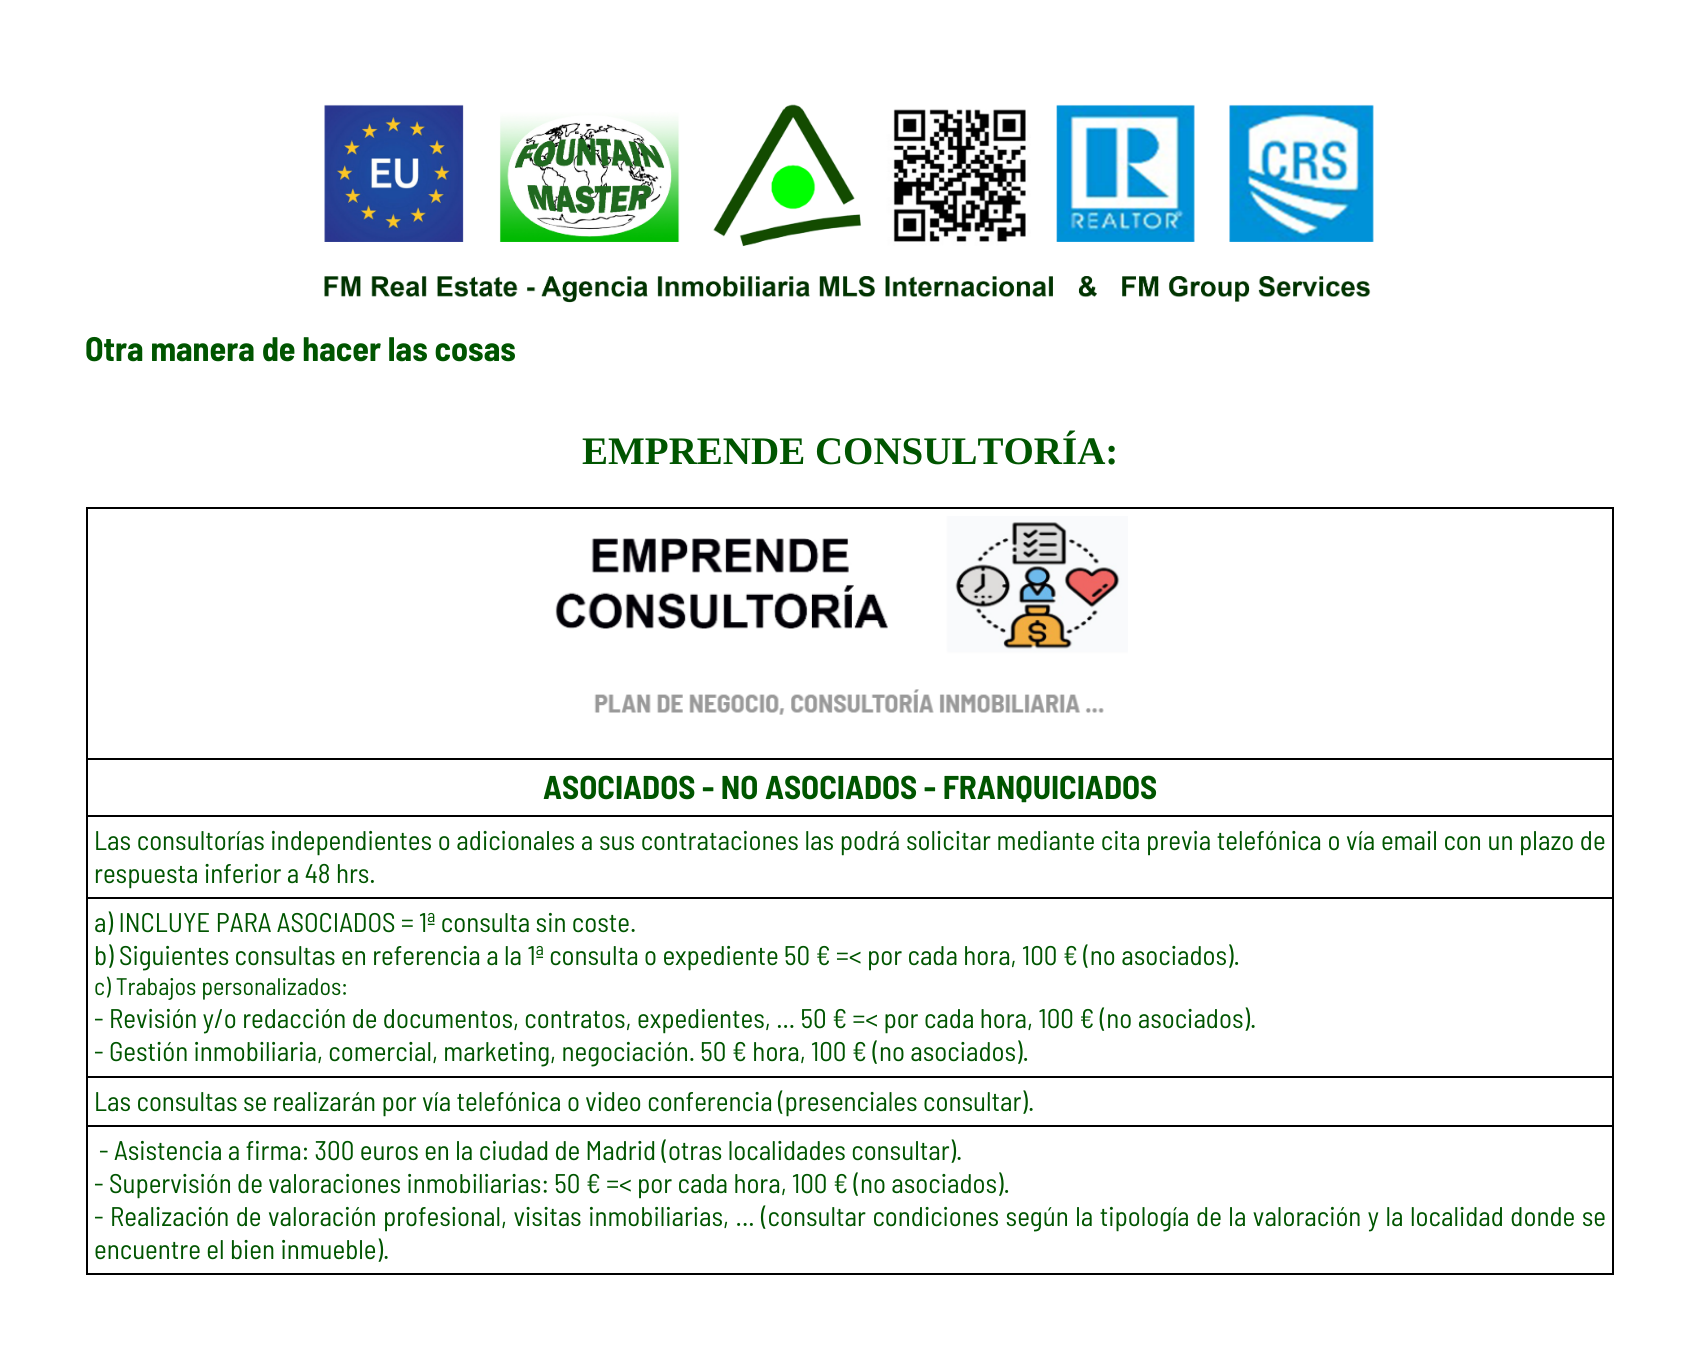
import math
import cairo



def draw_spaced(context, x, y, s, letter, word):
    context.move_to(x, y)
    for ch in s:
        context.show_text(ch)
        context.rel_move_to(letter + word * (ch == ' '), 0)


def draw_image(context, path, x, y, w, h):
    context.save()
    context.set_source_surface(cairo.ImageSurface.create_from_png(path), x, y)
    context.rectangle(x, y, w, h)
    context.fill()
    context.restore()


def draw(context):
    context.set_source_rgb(1, 1, 1)
    context.paint()
    draw_image(context, "images/1.png", 324, 104, 1050, 199)
    context.rectangle(87, 508, 1526, 766)
    context.set_source_rgb(0, 0, 0)
    context.stroke()
    context.rectangle(87, 758, 1526, 2)
    context.fill()
    draw_image(context, "images/2.png", 555, 516, 573, 199)
    context.rectangle(87, 815, 1526, 2)
    context.fill()
    context.rectangle(87, 897, 1526, 2)
    context.fill()
    context.rectangle(87, 1076, 1526, 2)
    context.fill()
    context.rectangle(87, 1125, 1526, 2)
    context.fill()
    context.select_font_face("Barlow Semi Condensed", cairo.FontSlant.NORMAL, cairo.FontWeight.BOLD)
    context.set_font_size(34)
    context.set_source_rgb(0, 85 / 255, 0)
    context.move_to(85, 361)
    context.show_text("Otra manera de hacer las cosas")
    context.select_font_face("Liberation Serif", cairo.FontSlant.NORMAL, cairo.FontWeight.BOLD)
    context.set_font_size(39)
    context.move_to(582, 464)
    context.show_text("EMPRENDE CONSULTORÍA:")
    context.select_font_face("Barlow Semi Condensed", cairo.FontSlant.NORMAL, cairo.FontWeight.BOLD)
    context.set_font_size(33)
    context.move_to(543, 799)
    context.show_text("ASOCIADOS - NO ASOCIADOS - FRANQUICIADOS")
    context.select_font_face("Barlow Semi Condensed")
    context.set_font_size(27)
    draw_spaced(context, 94, 850, "Las consultorías independientes o adicionales a sus contrataciones las podrá solicitar mediante cita previa telefónica o vía email con un plazo de", 0, 0.25)
    context.move_to(94, 883)
    context.show_text("respuesta inferior a 48 hrs.")
    context.move_to(94, 932)
    context.show_text("a) INCLUYE PARA ASOCIADOS = 1ª consulta sin coste.")
    context.move_to(94, 965)
    context.show_text("b) Siguientes consultas en referencia a la 1ª consulta o expediente 50 € =< por cada hora, 100 € (no asociados).")
    context.set_font_size(24)
    context.move_to(94, 995)
    context.show_text("c) Trabajos personalizados:")
    context.set_font_size(27)
    context.move_to(94, 1028)
    context.show_text("- Revisión y/o redacción de documentos, contratos, expedientes, ... 50 € =< por cada hora, 100 € (no asociados).")
    context.move_to(94, 1061)
    context.show_text("- Gestión inmobiliaria, comercial, marketing, negociación. 50 € hora, 100 € (no asociados).")
    context.move_to(94, 1111)
    context.show_text("Las consultas se realizarán por vía telefónica o video conferencia (presenciales consultar).")
    context.move_to(99, 1160)
    context.show_text("- Asistencia a firma: 300 euros en la ciudad de Madrid (otras localidades consultar).")
    context.move_to(94, 1193)
    context.show_text("- Supervisión de valoraciones inmobiliarias: 50 € =< por cada hora, 100 € (no asociados).")
    draw_spaced(context, 94, 1226, "- Realización de valoración profesional, visitas inmobiliarias, ... (consultar condiciones según la tipología de la valoración y la localidad donde se", 0, 1.1)
    context.move_to(94, 1259)
    context.show_text("encuentre el bien inmueble).")


surface = cairo.ImageSurface(cairo.Format.RGB24, 1699, 1357)
context = cairo.Context(surface)
options = cairo.FontOptions()
options.set_hint_metrics(cairo.HintMetrics.OFF)
options.set_hint_style(cairo.HintStyle.NONE)
context.set_font_options(options)
context.set_miter_limit(4)
draw(context)
surface.write_to_png("out.png")
